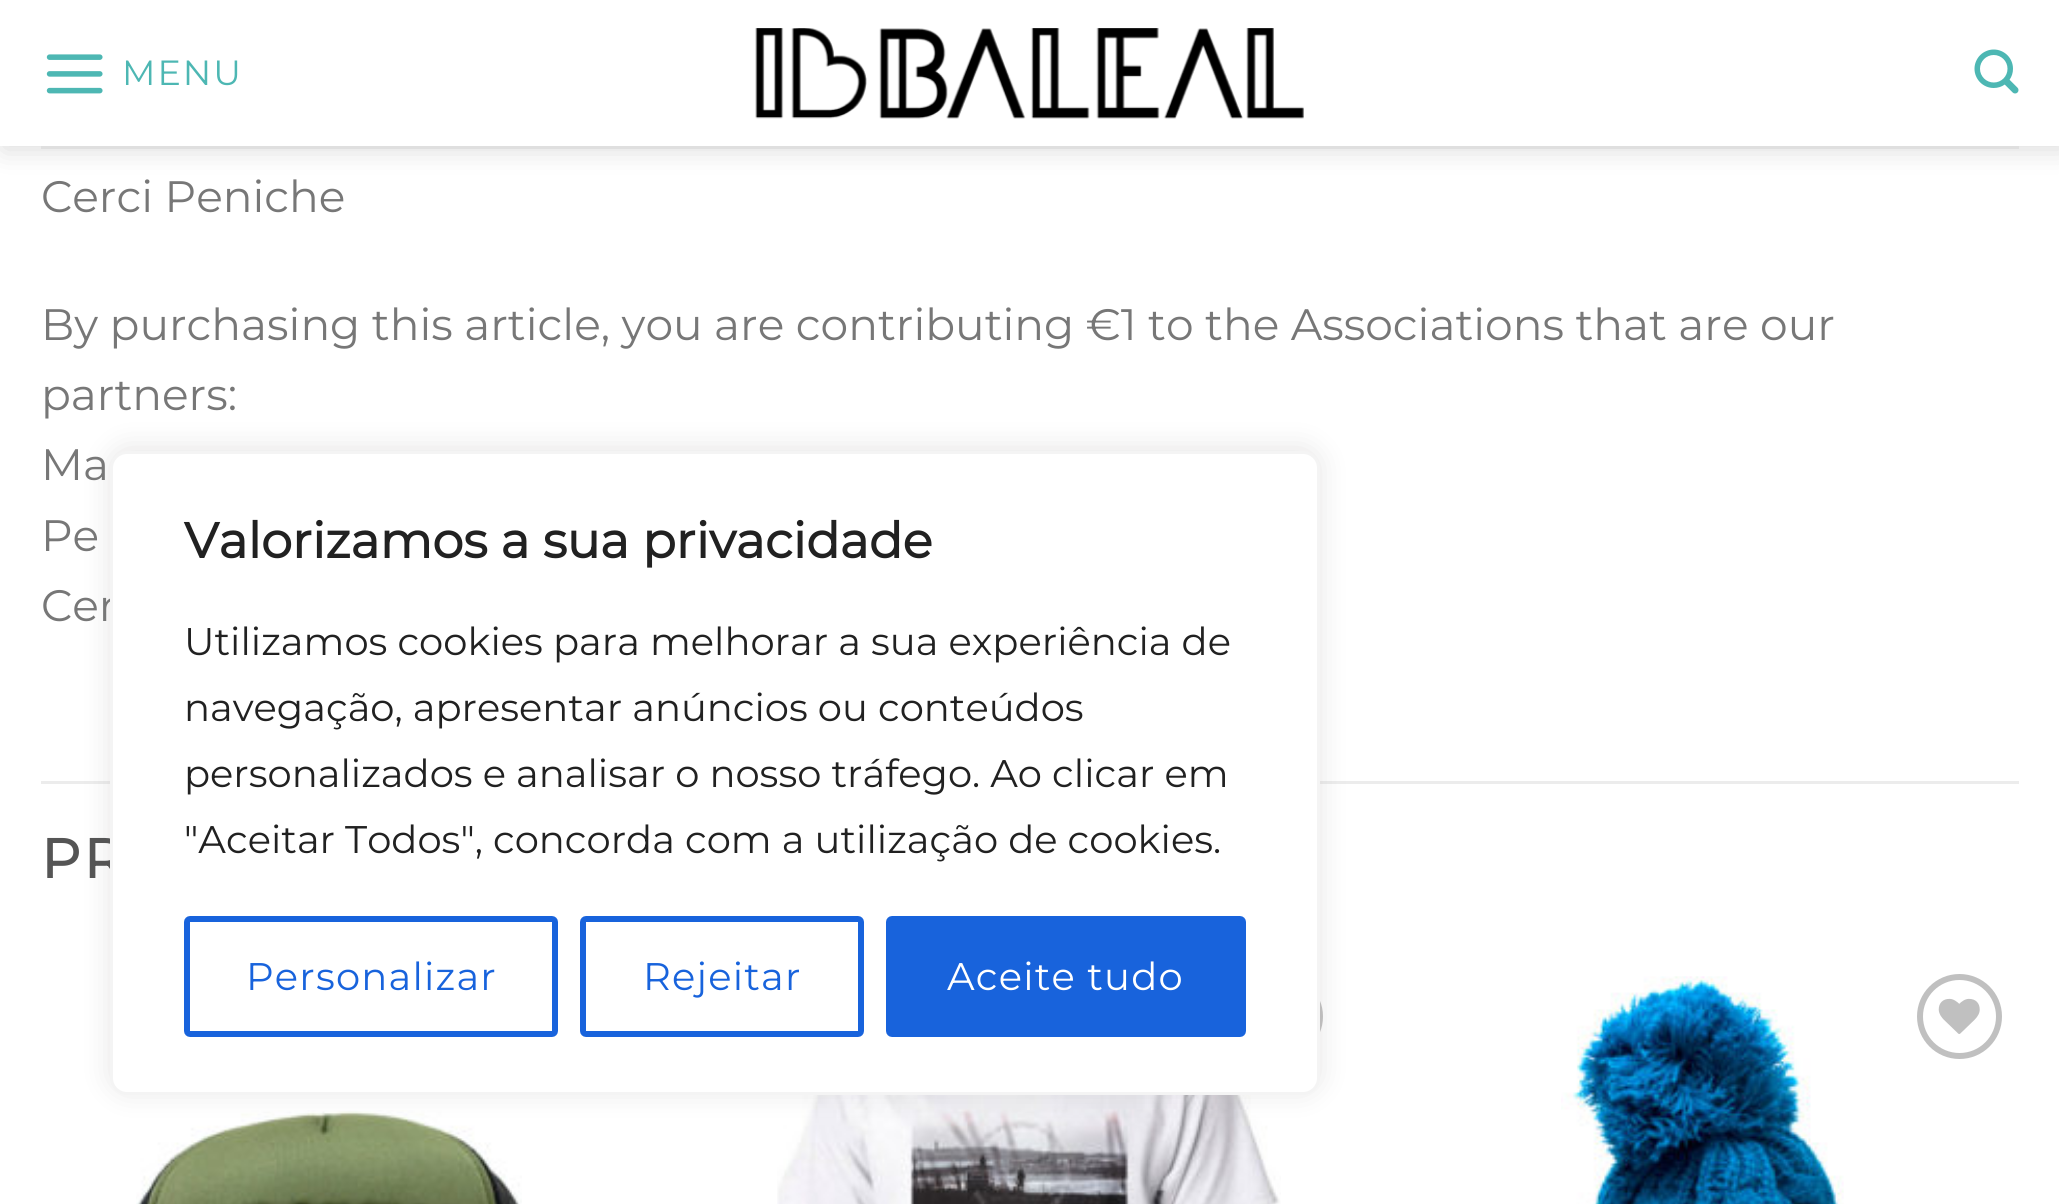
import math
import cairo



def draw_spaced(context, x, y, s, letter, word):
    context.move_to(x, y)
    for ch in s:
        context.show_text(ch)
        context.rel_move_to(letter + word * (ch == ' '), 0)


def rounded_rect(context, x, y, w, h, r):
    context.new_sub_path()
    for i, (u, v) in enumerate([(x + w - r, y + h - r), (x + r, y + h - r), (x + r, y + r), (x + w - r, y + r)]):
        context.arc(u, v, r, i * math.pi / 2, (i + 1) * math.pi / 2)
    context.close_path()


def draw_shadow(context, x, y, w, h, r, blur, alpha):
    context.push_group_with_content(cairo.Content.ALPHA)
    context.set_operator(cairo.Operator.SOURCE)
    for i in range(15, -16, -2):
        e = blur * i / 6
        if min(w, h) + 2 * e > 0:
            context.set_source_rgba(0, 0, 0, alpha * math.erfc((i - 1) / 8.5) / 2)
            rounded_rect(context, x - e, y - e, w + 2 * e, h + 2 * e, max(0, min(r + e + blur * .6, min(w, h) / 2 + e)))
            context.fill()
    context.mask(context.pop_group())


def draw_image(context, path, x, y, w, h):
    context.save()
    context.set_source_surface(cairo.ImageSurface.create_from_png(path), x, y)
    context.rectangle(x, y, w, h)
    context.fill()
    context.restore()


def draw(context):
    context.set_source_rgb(1, 1, 1)
    context.paint()
    context.set_source_rgb(0, 0, 0)
    draw_shadow(context, 3, 3, 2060, 146, 0, 14, 0.15)
    context.set_source_rgb(1, 1, 1)
    context.rectangle(0, 0, 2059, 146)
    context.fill()
    draw_image(context, "images/1.png", 46, 54, 57, 40)
    draw_image(context, "images/2.png", 755, 28, 549, 91)
    draw_image(context, "images/3.png", 1974, 49, 45, 45)
    context.set_source_rgb(223 / 255, 223 / 255, 223 / 255)
    context.rectangle(41, 146, 1978, 3)
    context.fill()
    context.set_source_rgb(236 / 255, 236 / 255, 236 / 255)
    context.rectangle(41, 781, 1978, 3)
    context.fill()
    draw_image(context, "images/4.png", 136, 1110, 386, 94)
    context.arc(1280.5, 1016.5, 39.5, 0, 2 * math.pi)
    context.set_source_rgb(192 / 255, 192 / 255, 192 / 255)
    context.set_line_width(6)
    context.stroke()
    draw_image(context, "images/5.png", 777, 1095, 504, 109)
    draw_image(context, "images/6.png", 1561, 976, 283, 228)
    context.arc(1959.5, 1016.5, 39.5, 0, 2 * math.pi)
    context.stroke()
    draw_image(context, "images/7.png", 1938, 998, 42, 36)
    context.set_source_rgb(172 / 255, 171 / 255, 171 / 255)
    draw_shadow(context, 110, 448, 1210, 644, 17, 14, 0.3)
    context.select_font_face("Montserrat Thin")
    context.set_font_size(35)
    context.set_source_rgb(77 / 255, 183 / 255, 179 / 255)
    draw_spaced(context, 122, 85, "MENU", 2, 0)
    context.set_font_size(44)
    context.set_source_rgb(119 / 255, 119 / 255, 119 / 255)
    context.move_to(41, 212)
    context.show_text("Cerci Peniche")
    context.move_to(41, 340)
    context.show_text("By purchasing this article, you are contributing €1 to the Associations that are our")
    context.move_to(41, 410)
    context.show_text("partners:")
    context.move_to(41, 480)
    context.show_text("Ma")
    context.move_to(41, 551)
    context.show_text("Pe")
    context.move_to(41, 621)
    context.show_text("Cer")
    context.select_font_face("Montserrat", cairo.FontSlant.NORMAL, cairo.FontWeight.BOLD)
    context.set_font_size(55)
    context.set_source_rgb(85 / 255, 85 / 255, 85 / 255)
    draw_spaced(context, 41, 878, "PR", 3, 0)
    context.set_source_rgb(1, 1, 1)
    rounded_rect(context, 111.5, 452.5, 1207, 641, 15.5)
    context.fill_preserve()
    context.set_source_rgb(244 / 255, 244 / 255, 244 / 255)
    context.set_line_width(3)
    context.stroke()
    context.set_font_size(49.5)
    context.set_source_rgb(33 / 255, 33 / 255, 33 / 255)
    context.move_to(184, 558)
    context.show_text("Valorizamos a sua privacidade")
    context.select_font_face("Montserrat Thin")
    context.set_font_size(38.5)
    context.move_to(184, 655)
    context.show_text("Utilizamos cookies para melhorar a sua experiência de")
    context.move_to(184, 721)
    context.show_text("navegação, apresentar anúncios ou conteúdos")
    context.move_to(184, 787)
    context.show_text("personalizados e analisar o nosso tráfego. Ao clicar em")
    context.move_to(184, 853)
    context.show_text("\"Aceitar Todos\", concorda com a utilização de cookies.")
    rounded_rect(context, 187, 919, 368, 115, 3)
    context.set_source_rgb(24 / 255, 99 / 255, 220 / 255)
    context.set_line_width(6)
    context.stroke()
    draw_spaced(context, 246, 990, "Personalizar", 1.2, 0)
    rounded_rect(context, 583, 919, 278, 115, 3)
    context.stroke()
    draw_spaced(context, 643, 990, "Rejeitar", 1.2, 0)
    rounded_rect(context, 889, 919, 354, 115, 3)
    context.fill_preserve()
    context.stroke()
    context.set_source_rgb(1, 1, 1)
    draw_spaced(context, 947, 990, "Aceite tudo", 1.2, 0)


surface = cairo.ImageSurface(cairo.Format.RGB24, 2059, 1204)
context = cairo.Context(surface)
options = cairo.FontOptions()
options.set_hint_metrics(cairo.HintMetrics.OFF)
options.set_hint_style(cairo.HintStyle.NONE)
context.set_font_options(options)
context.set_miter_limit(4)
draw(context)
surface.write_to_png("out.png")
